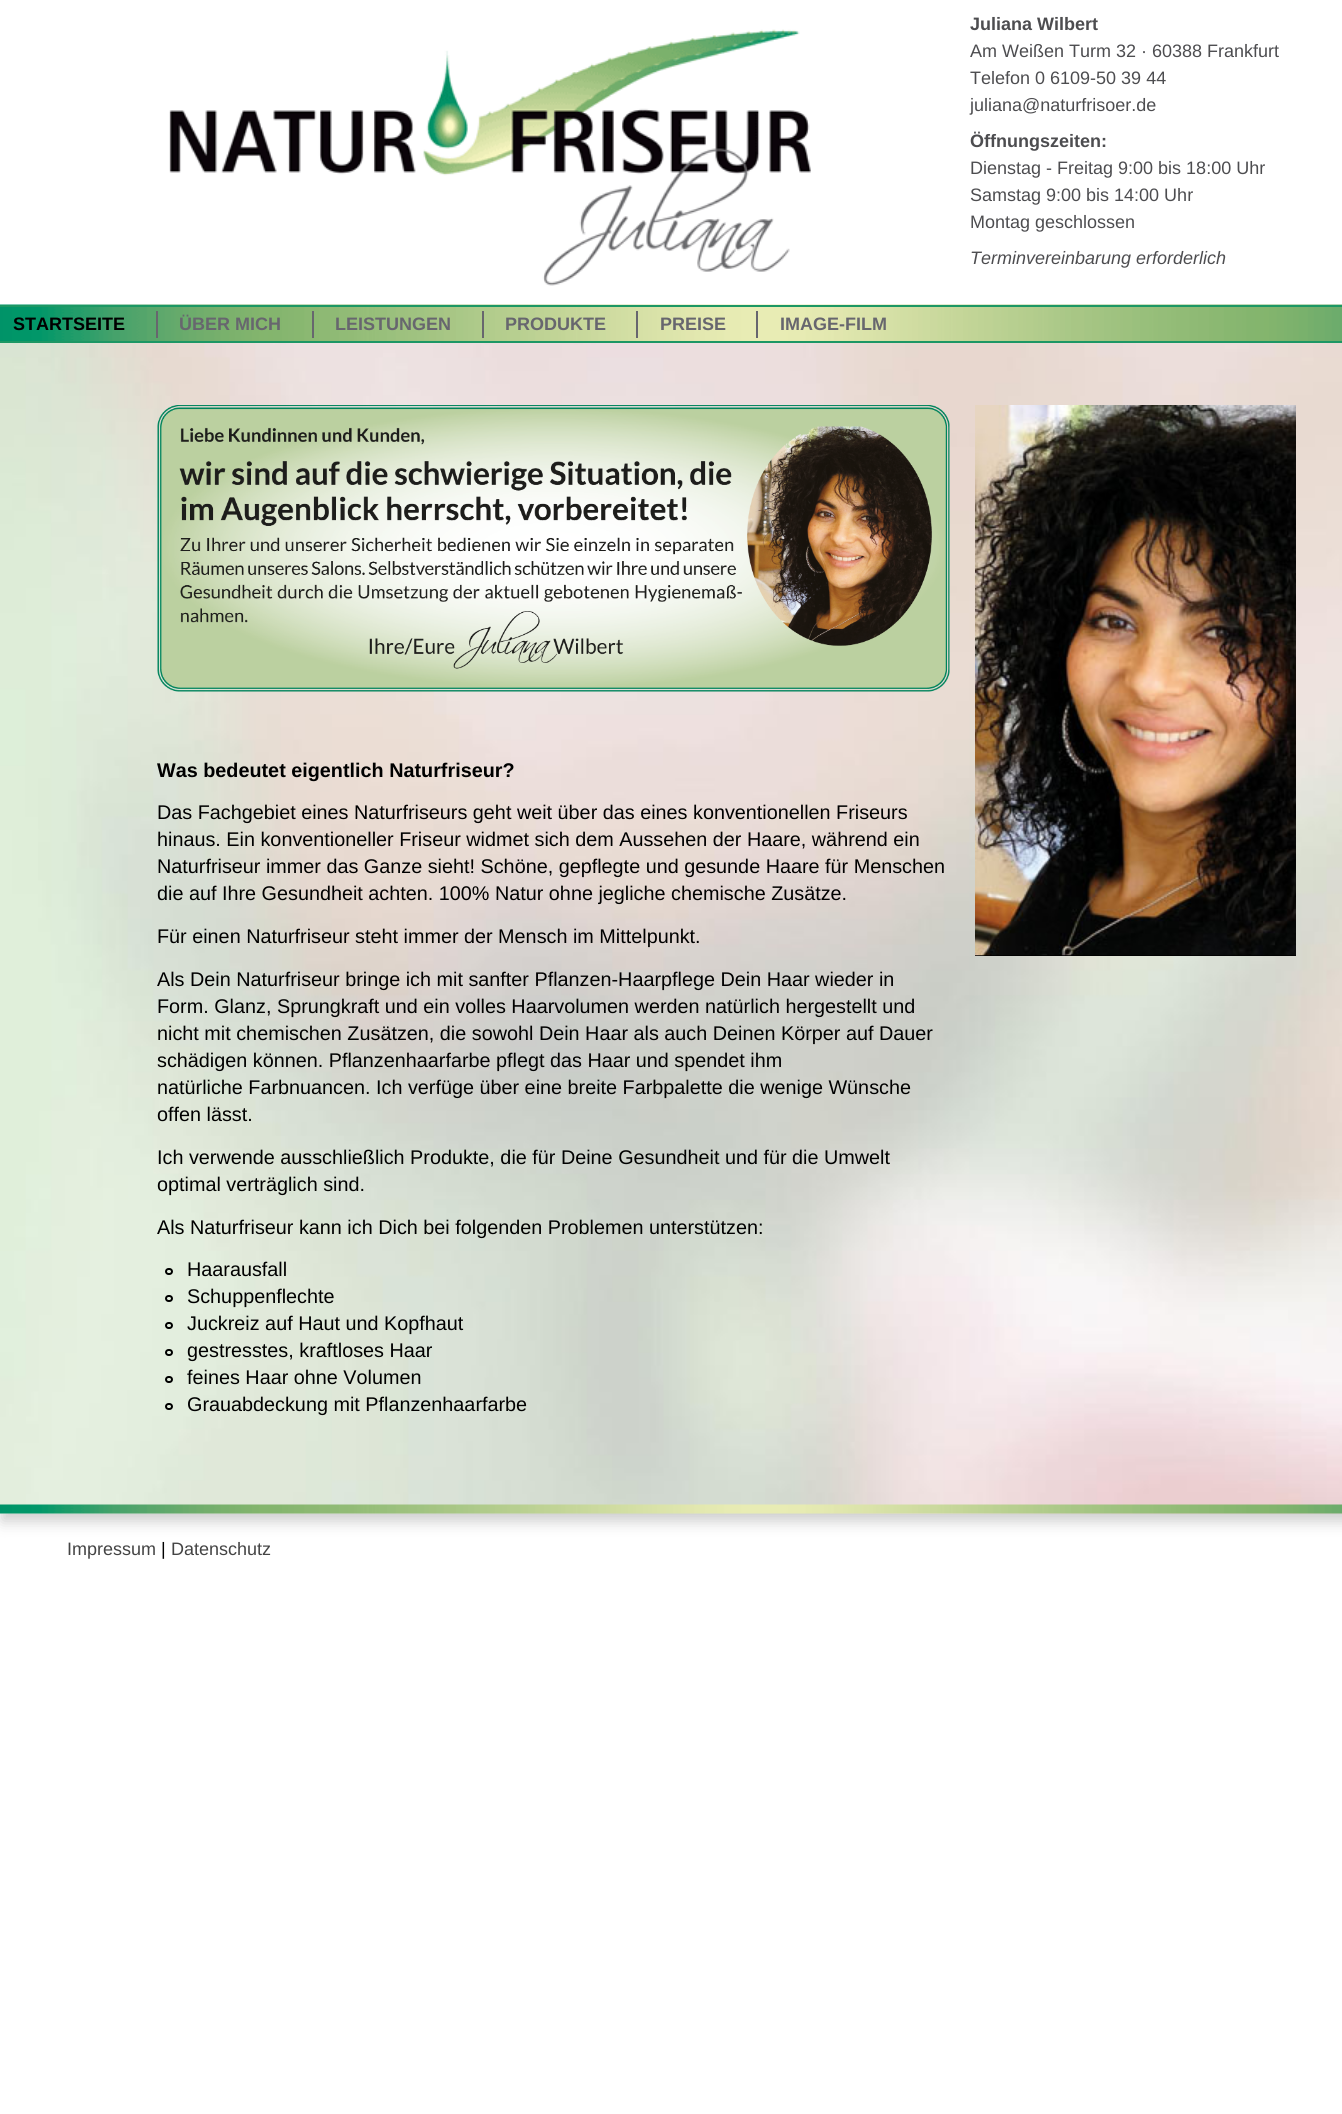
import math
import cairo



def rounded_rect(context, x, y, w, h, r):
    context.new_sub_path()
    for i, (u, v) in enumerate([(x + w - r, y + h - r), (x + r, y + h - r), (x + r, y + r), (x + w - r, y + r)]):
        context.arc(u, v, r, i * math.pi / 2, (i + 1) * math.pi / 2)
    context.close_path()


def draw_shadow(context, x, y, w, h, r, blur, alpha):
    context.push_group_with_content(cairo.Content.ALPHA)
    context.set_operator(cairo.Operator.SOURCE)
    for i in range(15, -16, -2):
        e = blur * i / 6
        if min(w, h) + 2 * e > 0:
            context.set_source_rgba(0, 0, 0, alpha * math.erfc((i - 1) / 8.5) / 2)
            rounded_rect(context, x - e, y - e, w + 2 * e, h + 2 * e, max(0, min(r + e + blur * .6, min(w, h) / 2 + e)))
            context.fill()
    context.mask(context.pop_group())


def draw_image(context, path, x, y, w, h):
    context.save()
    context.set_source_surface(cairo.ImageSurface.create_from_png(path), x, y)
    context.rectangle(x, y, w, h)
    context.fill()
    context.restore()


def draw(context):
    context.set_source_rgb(1, 1, 1)
    context.paint()
    context.set_source_rgb(204 / 255, 204 / 255, 204 / 255)
    draw_shadow(context, 2, 2, 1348, 1519, 0, 7.5, 1)
    draw_image(context, "images/1.png", 0, 343, 1342, 1171)
    context.set_source_rgb(1, 1, 1)
    context.rectangle(0, 0, 1342, 305)
    context.fill()
    draw_image(context, "images/2.png", 169, 29, 642, 257)
    draw_image(context, "images/3.png", 0, 304, 1342, 37)
    context.set_source_rgb(28 / 255, 151 / 255, 100 / 255)
    context.rectangle(0, 305, 1342, 2)
    context.fill()
    context.rectangle(0, 341, 1342, 2)
    context.fill()
    context.set_source_rgb(103 / 255, 102 / 255, 110 / 255)
    context.rectangle(156, 311, 2, 27)
    context.fill()
    context.rectangle(312, 311, 2, 27)
    context.fill()
    context.rectangle(482, 311, 2, 27)
    context.fill()
    context.rectangle(636, 311, 2, 27)
    context.fill()
    context.rectangle(756, 311, 2, 27)
    context.fill()
    context.set_source_rgb(0, 0, 0)
    context.rectangle(975, 955, 321, 1)
    context.fill()
    draw_image(context, "images/4.png", 975, 405, 321, 551)
    draw_image(context, "images/5.png", 157, 405, 793, 287)
    rounded_rect(context, 166, 1269, 6, 5, 2.5)
    context.stroke()
    rounded_rect(context, 166, 1296, 6, 5, 2.5)
    context.stroke()
    rounded_rect(context, 166, 1323, 6, 5, 2.5)
    context.stroke()
    rounded_rect(context, 166, 1350, 6, 5, 2.5)
    context.stroke()
    rounded_rect(context, 166, 1377, 6, 5, 2.5)
    context.stroke()
    rounded_rect(context, 166, 1404, 6, 5, 2.5)
    context.stroke()
    draw_image(context, "images/6.png", 0, 1504, 1342, 10)
    context.select_font_face("Liberation Sans", cairo.FontSlant.NORMAL, cairo.FontWeight.BOLD)
    context.set_font_size(18)
    context.set_source_rgb(77 / 255, 77 / 255, 80 / 255)
    context.move_to(970, 30)
    context.show_text("Juliana Wilbert")
    context.select_font_face("Liberation Sans")
    context.move_to(970, 57)
    context.show_text("Am Weißen Turm 32 · 60388 Frankfurt")
    context.move_to(970, 84)
    context.show_text("Telefon 0 6109-50 39 44")
    context.move_to(970, 111)
    context.show_text("juliana@naturfrisoer.de")
    context.select_font_face("Liberation Sans", cairo.FontSlant.NORMAL, cairo.FontWeight.BOLD)
    context.move_to(970, 147)
    context.show_text("Öffnungszeiten:")
    context.select_font_face("Liberation Sans")
    context.move_to(970, 174)
    context.show_text("Dienstag - Freitag 9:00 bis 18:00 Uhr")
    context.move_to(970, 201)
    context.show_text("Samstag 9:00 bis 14:00 Uhr")
    context.move_to(970, 228)
    context.show_text("Montag geschlossen")
    context.select_font_face("Liberation Sans", cairo.FontSlant.ITALIC)
    context.move_to(970, 264)
    context.show_text("Terminvereinbarung erforderlich")
    context.select_font_face("Liberation Sans", cairo.FontSlant.NORMAL, cairo.FontWeight.BOLD)
    context.set_source_rgb(0, 0, 0)
    context.move_to(13, 330)
    context.show_text("STARTSEITE")
    context.set_source_rgb(103 / 255, 102 / 255, 110 / 255)
    context.move_to(179, 330)
    context.show_text("ÜBER MICH")
    context.move_to(335, 330)
    context.show_text("LEISTUNGEN")
    context.move_to(505, 330)
    context.show_text("PRODUKTE")
    context.move_to(660, 330)
    context.show_text("PREISE")
    context.move_to(780, 330)
    context.show_text("IMAGE-FILM")
    context.set_font_size(19.8)
    context.set_source_rgb(0, 0, 0)
    context.move_to(157, 777)
    context.show_text("Was bedeutet eigentlich Naturfriseur?")
    context.select_font_face("Liberation Sans")
    context.move_to(157, 819)
    context.show_text("Das Fachgebiet eines Naturfriseurs geht weit über das eines konventionellen Friseurs")
    context.move_to(157, 846)
    context.show_text("hinaus. Ein konventioneller Friseur widmet sich dem Aussehen der Haare, während ein")
    context.move_to(157, 873)
    context.show_text("Naturfriseur immer das Ganze sieht! Schöne, gepflegte und gesunde Haare für Menschen")
    context.move_to(157, 900)
    context.show_text("die auf Ihre Gesundheit achten. 100% Natur ohne jegliche chemische Zusätze.")
    context.move_to(157, 943)
    context.show_text("Für einen Naturfriseur steht immer der Mensch im Mittelpunkt.")
    context.move_to(157, 986)
    context.show_text("Als Dein Naturfriseur bringe ich mit sanfter Pflanzen-Haarpflege Dein Haar wieder in")
    context.move_to(157, 1013)
    context.show_text("Form. Glanz, Sprungkraft und ein volles Haarvolumen werden natürlich hergestellt und")
    context.move_to(157, 1040)
    context.show_text("nicht mit chemischen Zusätzen, die sowohl Dein Haar als auch Deinen Körper auf Dauer")
    context.move_to(157, 1067)
    context.show_text("schädigen können. Pflanzenhaarfarbe pflegt das Haar und spendet ihm")
    context.move_to(157, 1094)
    context.show_text("natürliche Farbnuancen. Ich verfüge über eine breite Farbpalette die wenige Wünsche")
    context.move_to(157, 1121)
    context.show_text("offen lässt.")
    context.move_to(157, 1164)
    context.show_text("Ich verwende ausschließlich Produkte, die für Deine Gesundheit und für die Umwelt")
    context.move_to(157, 1191)
    context.show_text("optimal verträglich sind.")
    context.move_to(157, 1234)
    context.show_text("Als Naturfriseur kann ich Dich bei folgenden Problemen unterstützen:")
    context.move_to(187, 1276)
    context.show_text("Haarausfall")
    context.move_to(187, 1303)
    context.show_text("Schuppenflechte")
    context.move_to(187, 1330)
    context.show_text("Juckreiz auf Haut und Kopfhaut")
    context.move_to(187, 1357)
    context.show_text("gestresstes, kraftloses Haar")
    context.move_to(187, 1384)
    context.show_text("feines Haar ohne Volumen")
    context.move_to(187, 1411)
    context.show_text("Grauabdeckung mit Pflanzenhaarfarbe")
    context.set_font_size(18)
    context.set_source_rgb(68 / 255, 68 / 255, 68 / 255)
    context.move_to(67, 1555)
    context.show_text("Impressum")
    context.set_source_rgb(0, 0, 0)
    context.move_to(161, 1555)
    context.show_text("|")
    context.set_source_rgb(68 / 255, 68 / 255, 68 / 255)
    context.move_to(171, 1555)
    context.show_text("Datenschutz")


surface = cairo.ImageSurface(cairo.Format.RGB24, 1342, 2114)
context = cairo.Context(surface)
options = cairo.FontOptions()
options.set_hint_metrics(cairo.HintMetrics.OFF)
options.set_hint_style(cairo.HintStyle.NONE)
context.set_font_options(options)
context.set_miter_limit(4)
draw(context)
surface.write_to_png("out.png")
